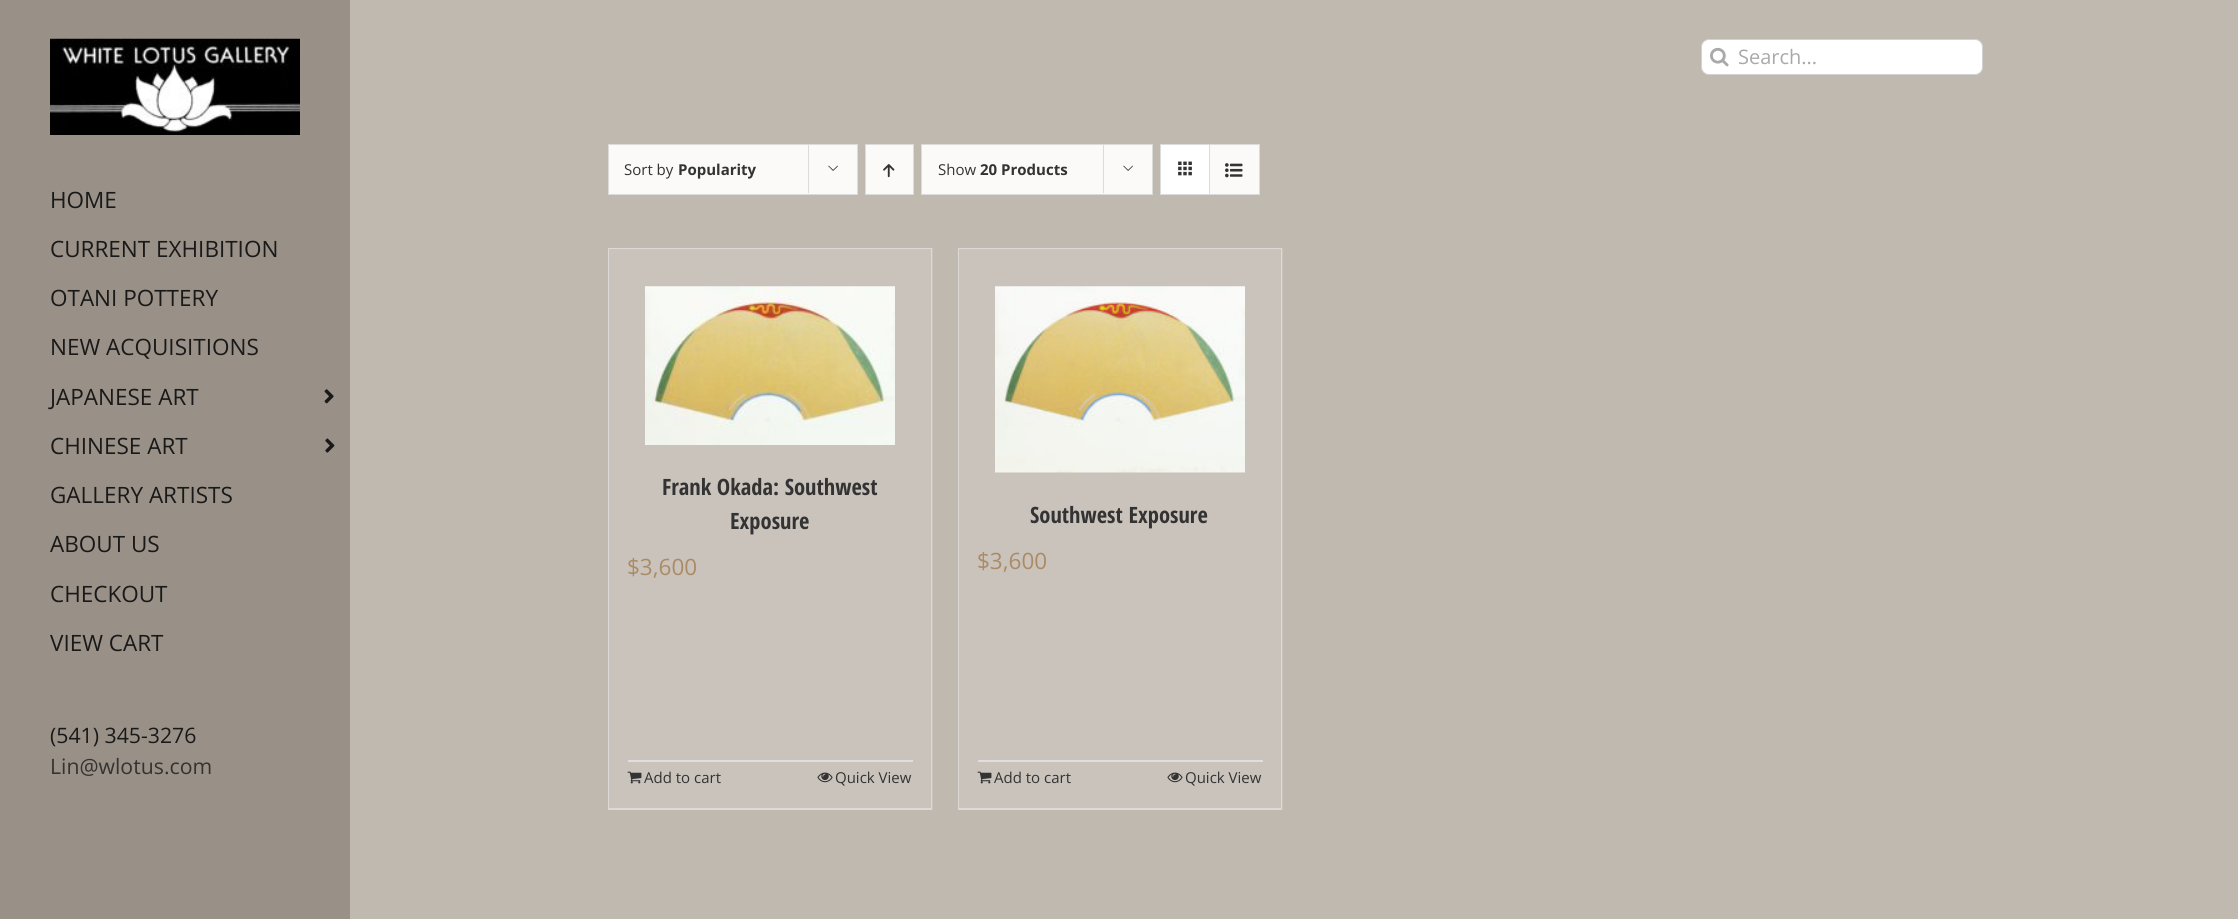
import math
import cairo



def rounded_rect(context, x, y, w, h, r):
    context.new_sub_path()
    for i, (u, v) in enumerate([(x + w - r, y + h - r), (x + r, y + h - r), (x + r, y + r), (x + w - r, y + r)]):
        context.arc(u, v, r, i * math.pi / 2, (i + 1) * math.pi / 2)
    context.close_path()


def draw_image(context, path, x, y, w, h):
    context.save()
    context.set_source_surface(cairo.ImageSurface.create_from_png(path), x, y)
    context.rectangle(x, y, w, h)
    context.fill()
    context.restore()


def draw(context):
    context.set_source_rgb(191 / 255, 185 / 255, 176 / 255)
    context.paint()
    context.set_source_rgb(1, 1, 1)
    rounded_rect(context, 1701.5, 39.5, 281, 35, 7.5)
    context.fill_preserve()
    context.set_source_rgb(210 / 255, 210 / 255, 210 / 255)
    context.set_line_width(1)
    context.stroke()
    draw_image(context, "images/1.png", 1710, 47, 19, 20)
    context.set_source_rgb(153 / 255, 145 / 255, 135 / 255)
    context.rectangle(0, 0, 350, 919)
    context.fill()
    draw_image(context, "images/2.png", 50, 38, 250, 97)
    draw_image(context, "images/3.png", 324, 389, 10, 15)
    draw_image(context, "images/4.png", 325, 438, 10, 15)
    context.set_source_rgb(251 / 255, 250 / 255, 249 / 255)
    context.rectangle(608.5, 144.5, 249, 50)
    context.fill_preserve()
    context.set_source_rgb(219 / 255, 219 / 255, 219 / 255)
    context.stroke()
    context.rectangle(808, 144, 1, 49)
    context.fill()
    draw_image(context, "images/5.png", 828, 165, 10, 6)
    context.set_source_rgb(251 / 255, 250 / 255, 249 / 255)
    context.rectangle(865.5, 144.5, 48, 50)
    context.fill_preserve()
    context.set_source_rgb(219 / 255, 219 / 255, 219 / 255)
    context.stroke()
    draw_image(context, "images/6.png", 883, 164, 12, 14)
    context.set_source_rgb(251 / 255, 250 / 255, 249 / 255)
    context.rectangle(921.5, 144.5, 231, 50)
    context.fill_preserve()
    context.set_source_rgb(219 / 255, 219 / 255, 219 / 255)
    context.stroke()
    context.rectangle(1103, 144, 1, 49)
    context.fill()
    draw_image(context, "images/5.png", 1123, 165, 10, 6)
    context.rectangle(1160.5, 144.5, 99, 50)
    context.stroke()
    context.set_source_rgb(1, 1, 1)
    context.rectangle(1161, 145, 48, 49)
    context.fill()
    context.set_source_rgb(219 / 255, 219 / 255, 219 / 255)
    context.rectangle(1209, 145, 1, 49)
    context.fill()
    draw_image(context, "images/7.png", 1178, 161, 14, 15)
    context.set_source_rgb(251 / 255, 250 / 255, 249 / 255)
    context.rectangle(1210, 145, 49, 49)
    context.fill()
    draw_image(context, "images/8.png", 1225, 163, 18, 15)
    context.set_source_rgb(201 / 255, 195 / 255, 188 / 255)
    context.rectangle(608, 248, 325, 562)
    context.fill()
    context.set_source_rgb(220 / 255, 217 / 255, 214 / 255)
    context.new_path()
    context.move_to(608, 248)
    context.line_to(932, 248)
    context.line_to(931, 249)
    context.line_to(609, 249)
    context.close_path()
    context.fill()
    context.set_source_rgba(235 / 255, 234 / 255, 234 / 255, 0.57)
    context.new_path()
    context.move_to(932, 248)
    context.line_to(932, 810)
    context.line_to(931, 808)
    context.line_to(931, 249)
    context.close_path()
    context.fill()
    context.new_path()
    context.move_to(932, 810)
    context.line_to(608, 810)
    context.line_to(609, 808)
    context.line_to(931, 808)
    context.close_path()
    context.fill()
    context.new_path()
    context.move_to(608, 810)
    context.line_to(608, 248)
    context.line_to(609, 249)
    context.line_to(609, 808)
    context.close_path()
    context.fill()
    draw_image(context, "images/9.png", 645, 286, 250, 159)
    context.set_source_rgb(224 / 255, 222 / 255, 222 / 255)
    context.rectangle(628, 760, 285, 2)
    context.fill()
    draw_image(context, "images/10.png", 627, 771, 15, 13)
    draw_image(context, "images/11.png", 817, 772, 16, 11)
    context.set_source_rgb(201 / 255, 195 / 255, 188 / 255)
    context.rectangle(958, 248, 325, 562)
    context.fill()
    context.set_source_rgb(220 / 255, 217 / 255, 214 / 255)
    context.new_path()
    context.move_to(958, 248)
    context.line_to(1282, 248)
    context.line_to(1281, 249)
    context.line_to(959, 249)
    context.close_path()
    context.fill()
    context.set_source_rgba(235 / 255, 234 / 255, 234 / 255, 0.57)
    context.new_path()
    context.move_to(1282, 248)
    context.line_to(1282, 810)
    context.line_to(1281, 808)
    context.line_to(1281, 249)
    context.close_path()
    context.fill()
    context.new_path()
    context.move_to(1282, 810)
    context.line_to(958, 810)
    context.line_to(959, 808)
    context.line_to(1281, 808)
    context.close_path()
    context.fill()
    context.new_path()
    context.move_to(958, 810)
    context.line_to(958, 248)
    context.line_to(959, 249)
    context.line_to(959, 808)
    context.close_path()
    context.fill()
    draw_image(context, "images/12.png", 995, 286, 250, 187)
    context.set_source_rgb(224 / 255, 222 / 255, 222 / 255)
    context.rectangle(978, 760, 285, 2)
    context.fill()
    draw_image(context, "images/10.png", 977, 771, 15, 13)
    draw_image(context, "images/11.png", 1167, 772, 16, 11)
    context.select_font_face("Open Sans")
    context.set_font_size(20)
    context.set_source_rgb(170 / 255, 169 / 255, 169 / 255)
    context.move_to(1738, 64)
    context.show_text("Search...")
    context.set_font_size(22.5)
    context.set_source_rgb(25 / 255, 25 / 255, 25 / 255)
    context.move_to(50, 208)
    context.show_text("HOME")
    context.move_to(50, 257)
    context.show_text("CURRENT EXHIBITION")
    context.move_to(50, 306)
    context.show_text("OTANI POTTERY")
    context.move_to(50, 355)
    context.show_text("NEW ACQUISITIONS")
    context.move_to(50, 405)
    context.show_text("JAPANESE ART")
    context.move_to(50, 454)
    context.show_text("CHINESE ART")
    context.move_to(50, 503)
    context.show_text("GALLERY ARTISTS")
    context.move_to(50, 552)
    context.show_text("ABOUT US")
    context.move_to(50, 602)
    context.show_text("CHECKOUT")
    context.move_to(50, 651)
    context.show_text("VIEW CART")
    context.set_font_size(21.25)
    context.move_to(50, 743)
    context.show_text("(541) 345-3276")
    context.set_source_rgb(51 / 255, 51 / 255, 51 / 255)
    context.move_to(50, 774)
    context.show_text("Lin@wlotus.com")
    context.set_font_size(15)
    context.move_to(624, 175)
    context.show_text("Sort by")
    context.select_font_face("Open Sans", cairo.FontSlant.NORMAL, cairo.FontWeight.BOLD)
    context.move_to(678, 175)
    context.show_text("Popularity")
    context.select_font_face("Open Sans")
    context.move_to(938, 175)
    context.show_text("Show")
    context.select_font_face("Open Sans", cairo.FontSlant.NORMAL, cairo.FontWeight.BOLD)
    context.move_to(980, 175)
    context.show_text("20 Products")
    context.select_font_face("Open Sans Condensed", cairo.FontSlant.NORMAL, cairo.FontWeight.BOLD)
    context.set_font_size(22.5)
    context.move_to(662, 495)
    context.show_text("Frank Okada: Southwest")
    context.move_to(730, 529)
    context.show_text("Exposure")
    context.select_font_face("Open Sans")
    context.set_source_rgb(171 / 255, 139 / 255, 101 / 255)
    context.move_to(627, 575)
    context.show_text("$3,600")
    context.set_font_size(15)
    context.set_source_rgb(51 / 255, 51 / 255, 51 / 255)
    context.move_to(644, 783)
    context.show_text("Add to cart")
    context.move_to(835, 783)
    context.show_text("Quick View")
    context.select_font_face("Open Sans Condensed", cairo.FontSlant.NORMAL, cairo.FontWeight.BOLD)
    context.set_font_size(22.5)
    context.move_to(1030, 523)
    context.show_text("Southwest Exposure")
    context.select_font_face("Open Sans")
    context.set_source_rgb(171 / 255, 139 / 255, 101 / 255)
    context.move_to(977, 569)
    context.show_text("$3,600")
    context.set_font_size(15)
    context.set_source_rgb(51 / 255, 51 / 255, 51 / 255)
    context.move_to(994, 783)
    context.show_text("Add to cart")
    context.move_to(1185, 783)
    context.show_text("Quick View")


surface = cairo.ImageSurface(cairo.Format.RGB24, 2238, 919)
context = cairo.Context(surface)
options = cairo.FontOptions()
options.set_hint_metrics(cairo.HintMetrics.OFF)
options.set_hint_style(cairo.HintStyle.NONE)
context.set_font_options(options)
context.set_miter_limit(4)
draw(context)
surface.write_to_png("out.png")
